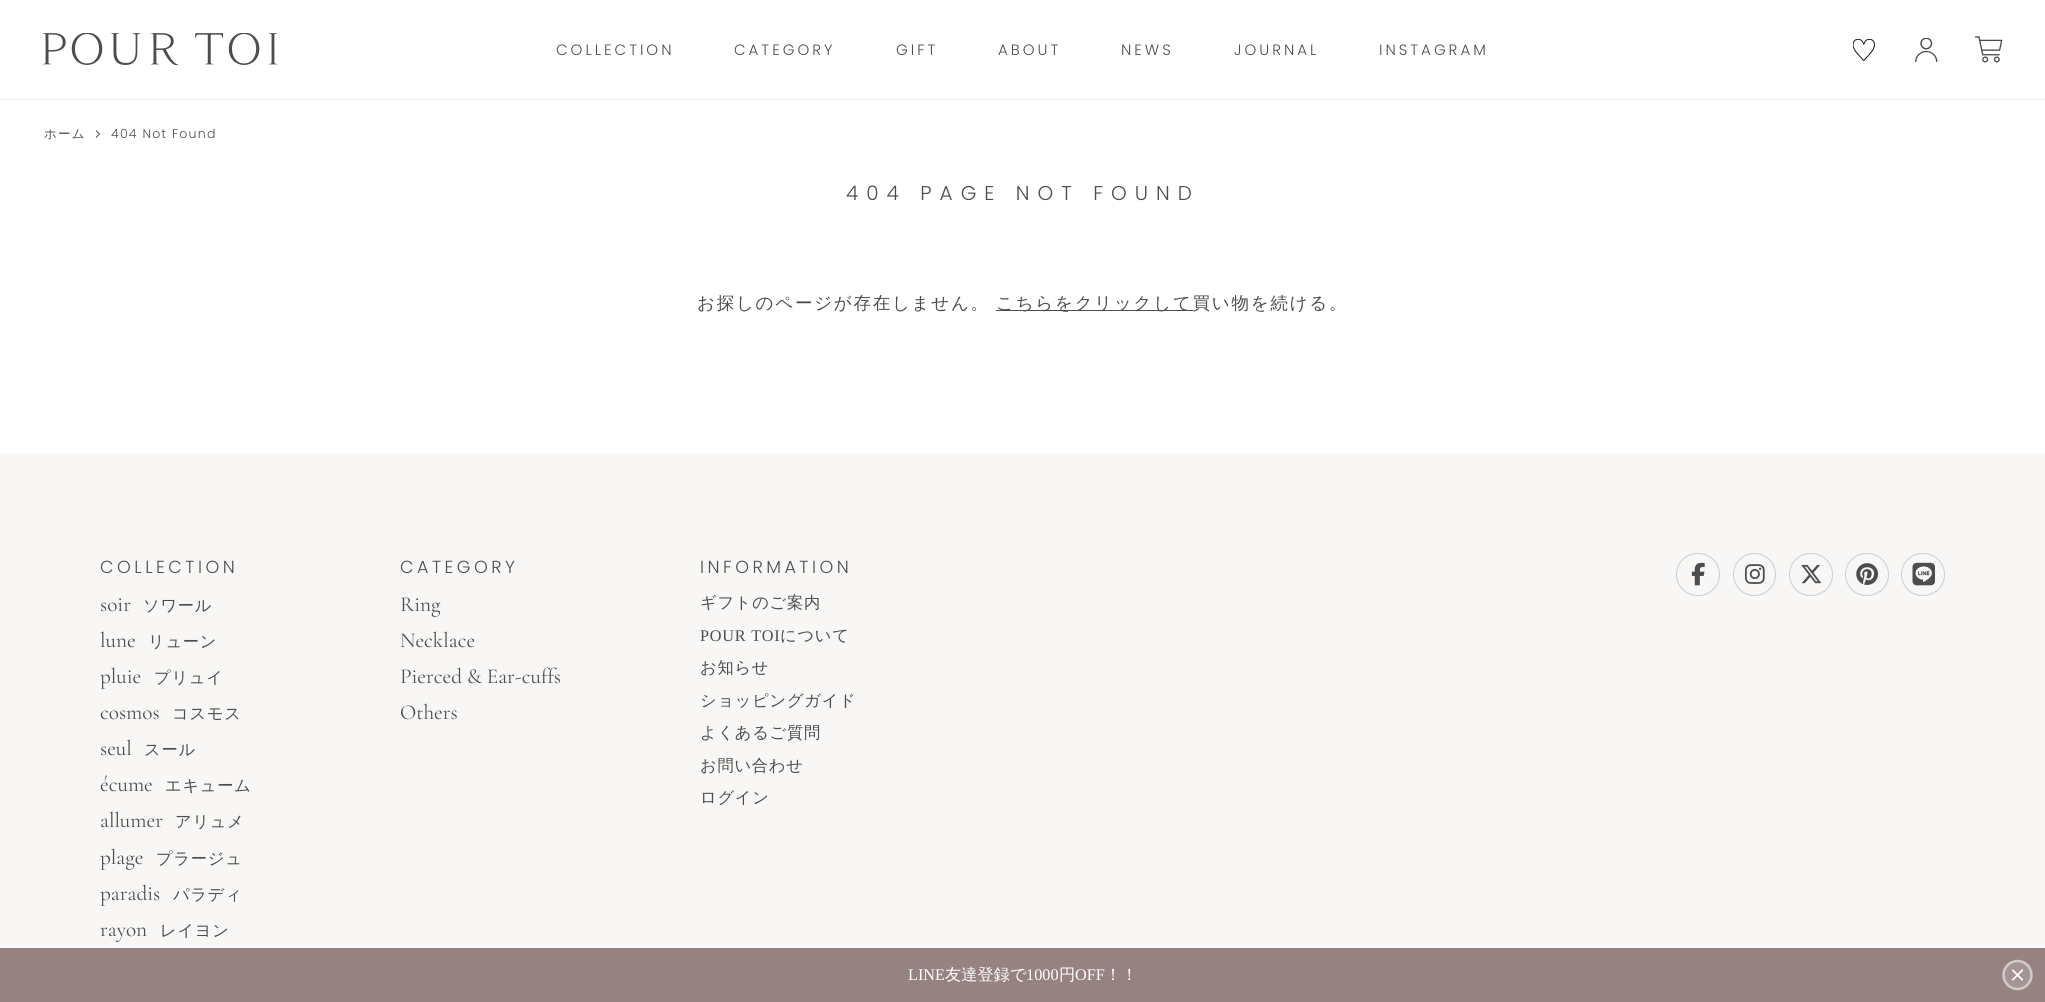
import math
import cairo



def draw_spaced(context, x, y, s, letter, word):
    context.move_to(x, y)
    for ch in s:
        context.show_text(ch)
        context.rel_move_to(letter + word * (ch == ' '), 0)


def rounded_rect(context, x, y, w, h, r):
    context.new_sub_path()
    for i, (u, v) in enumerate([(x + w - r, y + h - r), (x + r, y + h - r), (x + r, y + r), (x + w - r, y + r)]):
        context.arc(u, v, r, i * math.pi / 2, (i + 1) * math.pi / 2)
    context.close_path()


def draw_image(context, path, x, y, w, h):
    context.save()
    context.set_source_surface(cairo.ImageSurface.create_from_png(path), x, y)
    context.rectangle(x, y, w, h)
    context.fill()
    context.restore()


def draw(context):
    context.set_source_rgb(1, 1, 1)
    context.paint()
    context.set_source_rgb(239 / 255, 239 / 255, 239 / 255)
    context.rectangle(0, 99, 2045, 1)
    context.fill()
    draw_image(context, "images/1.png", 42, 33, 236, 32)
    draw_image(context, "images/2.png", 1853, 39, 22, 22)
    draw_image(context, "images/3.png", 1915, 38, 23, 24)
    draw_image(context, "images/4.png", 1975, 36, 28, 27)
    context.new_path()
    context.move_to(96, 130.5)
    context.line_to(99.5, 134)
    context.line_to(96, 137.5)
    context.set_source_rgb(0, 0, 0)
    context.set_line_width(0.7)
    context.stroke()
    context.set_source_rgb(77 / 255, 77 / 255, 77 / 255)
    context.rectangle(996, 310, 197, 1)
    context.fill()
    context.set_source_rgb(248 / 255, 247 / 255, 245 / 255)
    context.rectangle(0, 453, 2045, 495)
    context.fill()
    rounded_rect(context, 1676.5, 553.5, 43, 42, 21)
    context.set_source_rgb(204 / 255, 204 / 255, 204 / 255)
    context.set_line_width(1)
    context.stroke()
    draw_image(context, "images/5.png", 1691, 562, 14, 24)
    context.arc(1754.5, 574.5, 21, 0, 2 * math.pi)
    context.stroke()
    draw_image(context, "images/6.png", 1745, 564, 20, 20)
    rounded_rect(context, 1789.5, 553.5, 43, 42, 21)
    context.stroke()
    draw_image(context, "images/7.png", 1801, 564, 21, 20)
    rounded_rect(context, 1845.5, 553.5, 43, 42, 21)
    context.stroke()
    draw_image(context, "images/8.png", 1856, 563, 22, 22)
    rounded_rect(context, 1901.5, 553.5, 43, 42, 21)
    context.stroke()
    draw_image(context, "images/9.png", 1912, 562, 23, 24)
    context.set_source_rgb(151 / 255, 130 / 255, 130 / 255)
    context.rectangle(0, 948, 2045, 54)
    context.fill()
    draw_image(context, "images/10.png", 2002, 959, 31, 32)
    context.select_font_face("Poppins Light")
    context.set_font_size(15)
    context.set_source_rgb(77 / 255, 77 / 255, 77 / 255)
    draw_spaced(context, 556, 55, "COLLECTION", 3, 0)
    draw_spaced(context, 734, 55, "CATEGORY", 3, 0)
    draw_spaced(context, 896, 55, "GIFT", 3, 0)
    draw_spaced(context, 998, 55, "ABOUT", 3, 0)
    draw_spaced(context, 1121, 55, "NEWS", 3, 0)
    draw_spaced(context, 1234, 55, "JOURNAL", 3, 0)
    draw_spaced(context, 1379, 55, "INSTAGRAM", 3, 0)
    context.select_font_face("WenQuanYi Zen Hei Medium")
    context.set_font_size(12.5)
    draw_spaced(context, 44, 138, "ホーム", 1.25, 0)
    context.select_font_face("Poppins Light")
    draw_spaced(context, 111, 138, "404 Not Found", 1.25, 0)
    context.set_font_size(20)
    draw_spaced(context, 846, 200, "404 PAGE NOT FOUND", 8, 0)
    context.select_font_face("WenQuanYi Zen Hei Medium")
    context.set_font_size(17.5)
    draw_spaced(context, 697, 309, "お探しのページが存在しません。", 1.75, 0)
    draw_spaced(context, 996, 309, "こちらをクリックして買い物を続ける。", 1.75, 0)
    context.select_font_face("Poppins Light")
    draw_spaced(context, 100, 573, "COLLECTION", 3.5, 0)
    context.select_font_face("Cormorant Garamond")
    context.set_font_size(21.25)
    context.move_to(100, 611)
    context.show_text("soir")
    context.select_font_face("WenQuanYi Zen Hei Medium")
    context.set_font_size(16.25)
    draw_spaced(context, 143, 611, "ソワール", 0.75, 0)
    context.select_font_face("Cormorant Garamond")
    context.set_font_size(21.25)
    context.move_to(100, 647)
    context.show_text("lune")
    context.select_font_face("WenQuanYi Zen Hei Medium")
    context.set_font_size(16.25)
    draw_spaced(context, 148, 647, "リューン", 0.75, 0)
    context.select_font_face("Cormorant Garamond")
    context.set_font_size(21.25)
    context.move_to(100, 683)
    context.show_text("pluie")
    context.select_font_face("WenQuanYi Zen Hei Medium")
    context.set_font_size(16.25)
    draw_spaced(context, 154, 683, "プリュイ", 0.75, 0)
    context.select_font_face("Cormorant Garamond")
    context.set_font_size(21.25)
    context.move_to(100, 719)
    context.show_text("cosmos")
    context.select_font_face("WenQuanYi Zen Hei Medium")
    context.set_font_size(16.25)
    draw_spaced(context, 172, 719, "コスモス", 0.75, 0)
    context.select_font_face("Cormorant Garamond")
    context.set_font_size(21.25)
    context.move_to(100, 755)
    context.show_text("seul")
    context.select_font_face("WenQuanYi Zen Hei Medium")
    context.set_font_size(16.25)
    draw_spaced(context, 144, 755, "スール", 0.75, 0)
    context.select_font_face("Cormorant Garamond")
    context.set_font_size(21.25)
    context.move_to(100, 791)
    context.show_text("écume")
    context.select_font_face("WenQuanYi Zen Hei Medium")
    context.set_font_size(16.25)
    draw_spaced(context, 165, 791, "エキューム", 0.75, 0)
    context.select_font_face("Cormorant Garamond")
    context.set_font_size(21.25)
    context.move_to(100, 827)
    context.show_text("allumer")
    context.select_font_face("WenQuanYi Zen Hei Medium")
    context.set_font_size(16.25)
    draw_spaced(context, 175, 827, "アリュメ", 0.75, 0)
    context.select_font_face("Cormorant Garamond")
    context.set_font_size(21.25)
    context.move_to(100, 864)
    context.show_text("plage")
    context.select_font_face("WenQuanYi Zen Hei Medium")
    context.set_font_size(16.25)
    draw_spaced(context, 156, 864, "プラージュ", 0.75, 0)
    context.select_font_face("Cormorant Garamond")
    context.set_font_size(21.25)
    context.move_to(100, 900)
    context.show_text("paradis")
    context.select_font_face("WenQuanYi Zen Hei Medium")
    context.set_font_size(16.25)
    draw_spaced(context, 173, 900, "パラディ", 0.75, 0)
    context.select_font_face("Cormorant Garamond")
    context.set_font_size(21.25)
    context.move_to(100, 936)
    context.show_text("rayon")
    context.select_font_face("WenQuanYi Zen Hei Medium")
    context.set_font_size(16.25)
    draw_spaced(context, 160, 936, "レイヨン", 0.75, 0)
    context.select_font_face("Poppins Light")
    context.set_font_size(17.5)
    draw_spaced(context, 400, 573, "CATEGORY", 3.5, 0)
    context.select_font_face("Cormorant Garamond")
    context.set_font_size(21.25)
    context.move_to(400, 611)
    context.show_text("Ring")
    context.move_to(400, 647)
    context.show_text("Necklace")
    context.move_to(400, 683)
    context.show_text("Pierced & Ear-cuffs")
    context.move_to(400, 719)
    context.show_text("Others")
    context.select_font_face("Poppins Light")
    context.set_font_size(17.5)
    draw_spaced(context, 700, 573, "INFORMATION", 3.5, 0)
    context.select_font_face("WenQuanYi Zen Hei Medium")
    context.set_font_size(16.25)
    draw_spaced(context, 700, 608, "ギフトのご案内", 0.75, 0)
    context.select_font_face("Liberation Serif")
    draw_spaced(context, 700, 641, "POUR TOI", 0.75, 0)
    context.select_font_face("WenQuanYi Zen Hei Medium")
    draw_spaced(context, 780, 641, "について", 0.75, 0)
    draw_spaced(context, 700, 673, "お知らせ", 0.75, 0)
    draw_spaced(context, 700, 706, "ショッピングガイド", 0.75, 0)
    draw_spaced(context, 700, 738, "よくあるご質問", 0.75, 0)
    draw_spaced(context, 700, 771, "お問い合わせ", 0.75, 0)
    draw_spaced(context, 700, 803, "ログイン", 0.75, 0)
    context.select_font_face("Liberation Serif")
    context.set_source_rgb(1, 1, 1)
    context.move_to(908, 980)
    context.show_text("LINE")
    context.select_font_face("WenQuanYi Zen Hei Medium")
    context.move_to(945, 980)
    context.show_text("友達登録で")
    context.select_font_face("Liberation Serif")
    context.move_to(1026, 980)
    context.show_text("1000")
    context.select_font_face("WenQuanYi Zen Hei Medium")
    context.move_to(1059, 980)
    context.show_text("円")
    context.select_font_face("Liberation Serif")
    context.move_to(1075, 980)
    context.show_text("OFF")
    context.select_font_face("WenQuanYi Zen Hei Medium")
    context.move_to(1105, 980)
    context.show_text("！！")


surface = cairo.ImageSurface(cairo.Format.RGB24, 2045, 1002)
context = cairo.Context(surface)
options = cairo.FontOptions()
options.set_hint_metrics(cairo.HintMetrics.OFF)
options.set_hint_style(cairo.HintStyle.NONE)
context.set_font_options(options)
context.set_miter_limit(4)
draw(context)
surface.write_to_png("out.png")
